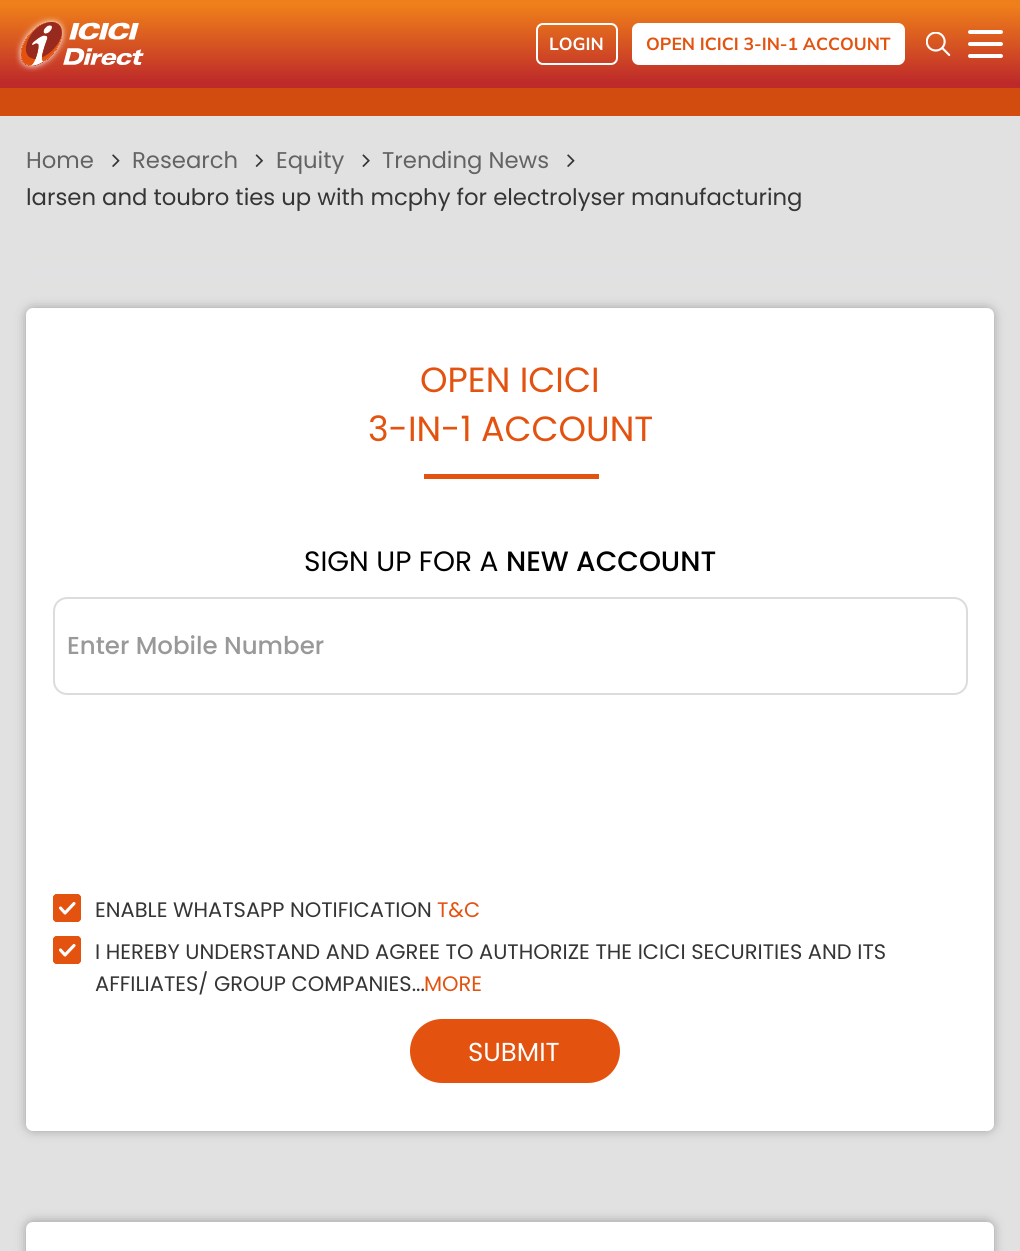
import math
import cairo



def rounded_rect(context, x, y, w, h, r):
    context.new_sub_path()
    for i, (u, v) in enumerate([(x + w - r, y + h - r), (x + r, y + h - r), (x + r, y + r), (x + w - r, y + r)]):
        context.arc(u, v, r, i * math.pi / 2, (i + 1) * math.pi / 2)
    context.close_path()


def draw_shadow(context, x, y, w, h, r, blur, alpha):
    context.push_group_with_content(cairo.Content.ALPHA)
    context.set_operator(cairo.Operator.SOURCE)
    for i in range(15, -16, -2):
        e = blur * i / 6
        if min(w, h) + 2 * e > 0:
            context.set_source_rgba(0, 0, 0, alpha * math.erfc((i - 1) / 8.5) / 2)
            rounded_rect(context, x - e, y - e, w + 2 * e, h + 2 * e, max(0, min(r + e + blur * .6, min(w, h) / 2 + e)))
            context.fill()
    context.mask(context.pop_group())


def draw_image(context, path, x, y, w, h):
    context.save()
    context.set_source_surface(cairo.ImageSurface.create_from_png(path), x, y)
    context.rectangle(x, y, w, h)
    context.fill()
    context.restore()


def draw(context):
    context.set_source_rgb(225 / 255, 225 / 255, 225 / 255)
    context.paint()
    gradient = cairo.LinearGradient(510, 88, 510, 0)
    gradient.add_color_stop_rgba(0.06, 190 / 255, 42 / 255, 42 / 255, 1)
    gradient.add_color_stop_rgba(0.94, 239 / 255, 127 / 255, 26 / 255, 1)
    context.set_source(gradient)
    context.rectangle(0, 0, 1020, 88)
    context.fill()
    draw_image(context, "images/1.png", 15, 16, 129, 56)
    rounded_rect(context, 537, 24, 80, 40, 6)
    context.set_source_rgb(1, 1, 1)
    context.stroke()
    rounded_rect(context, 632, 23, 273, 42, 7)
    context.fill()
    draw_image(context, "images/2.png", 926, 32, 25, 24)
    rounded_rect(context, 968, 30, 35, 4, 2)
    context.fill()
    rounded_rect(context, 968, 42, 35, 4, 2)
    context.fill()
    rounded_rect(context, 968, 54, 35, 4, 2)
    context.fill()
    context.set_source_rgb(209 / 255, 76 / 255, 14 / 255)
    context.rectangle(0, 88, 1020, 28)
    context.fill()
    draw_image(context, "images/3.png", 112, 154, 8, 13)
    draw_image(context, "images/4.png", 255, 154, 8, 13)
    draw_image(context, "images/5.png", 362, 154, 8, 13)
    draw_image(context, "images/3.png", 567, 154, 8, 13)
    context.set_source_rgb(222 / 255, 226 / 255, 230 / 255)
    context.rectangle(26, 271, 968, 2)
    context.fill()
    context.set_source_rgb(0, 0, 0)
    draw_shadow(context, 28, 310, 964, 819, 5, 6, 0.4)
    context.set_source_rgb(1, 1, 1)
    rounded_rect(context, 26, 308, 968, 823, 7)
    context.fill()
    context.set_source_rgb(227 / 255, 83 / 255, 15 / 255)
    context.rectangle(424, 474, 175, 5)
    context.fill()
    rounded_rect(context, 54, 598, 913, 96, 13)
    context.set_source_rgb(220 / 255, 220 / 255, 220 / 255)
    context.stroke()
    context.set_source_rgb(227 / 255, 83 / 255, 15 / 255)
    rounded_rect(context, 53, 894, 28, 28, 4)
    context.fill()
    context.new_path()
    context.move_to(60.5, 908)
    context.line_to(65, 913)
    context.line_to(74, 903.5)
    context.set_source_rgb(1, 1, 1)
    context.set_line_width(3.1)
    context.set_line_cap(cairo.LineCap.ROUND)
    context.set_line_join(cairo.LineJoin.ROUND)
    context.stroke()
    rounded_rect(context, 54, 895, 26, 26, 3)
    context.set_source_rgb(227 / 255, 83 / 255, 15 / 255)
    context.set_line_width(2)
    context.set_line_cap(cairo.LineCap.BUTT)
    context.set_line_join(cairo.LineJoin.MITER)
    context.stroke()
    rounded_rect(context, 53, 936, 28, 28, 4)
    context.fill()
    context.new_path()
    context.move_to(60.5, 950)
    context.line_to(65, 955)
    context.line_to(74, 945.5)
    context.set_source_rgb(1, 1, 1)
    context.set_line_width(3.1)
    context.set_line_cap(cairo.LineCap.ROUND)
    context.set_line_join(cairo.LineJoin.ROUND)
    context.stroke()
    rounded_rect(context, 54, 937, 26, 26, 3)
    context.set_source_rgb(227 / 255, 83 / 255, 15 / 255)
    context.set_line_width(2)
    context.set_line_cap(cairo.LineCap.BUTT)
    context.set_line_join(cairo.LineJoin.MITER)
    context.stroke()
    rounded_rect(context, 411, 1020, 208, 62, 31)
    context.fill_preserve()
    context.stroke()
    context.set_source_rgb(0, 0, 0)
    draw_shadow(context, 28, 1223, 964, 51, 5, 6, 0.4)
    context.set_source_rgb(1, 1, 1)
    rounded_rect(context, 26, 1222, 968, 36, 7)
    context.fill()
    context.select_font_face("Mulish", cairo.FontSlant.NORMAL, cairo.FontWeight.BOLD)
    context.set_font_size(17.5)
    context.move_to(549, 50)
    context.show_text("LOGIN")
    context.set_source_rgb(227 / 255, 83 / 255, 15 / 255)
    context.move_to(646, 50)
    context.show_text("OPEN ICICI 3-IN-1 ACCOUNT")
    context.select_font_face("Poppins")
    context.set_font_size(22.75)
    context.set_source_rgb(99 / 255, 99 / 255, 99 / 255)
    context.move_to(26, 168)
    context.show_text("Home")
    context.move_to(132, 168)
    context.show_text("Research")
    context.move_to(276, 168)
    context.show_text("Equity")
    context.move_to(382, 168)
    context.show_text("Trending News")
    context.set_source_rgb(53 / 255, 53 / 255, 53 / 255)
    context.move_to(26, 205)
    context.show_text("larsen and toubro ties up with mcphy for electrolyser manufacturing")
    context.set_font_size(35)
    context.set_source_rgb(227 / 255, 83 / 255, 15 / 255)
    context.move_to(420, 392)
    context.show_text("OPEN ICICI")
    context.move_to(368, 441)
    context.show_text("3-IN-1 ACCOUNT")
    context.set_font_size(28)
    context.set_source_rgb(0, 0, 0)
    context.move_to(304, 571)
    context.show_text("SIGN UP FOR A")
    context.select_font_face("Poppins Medium")
    context.move_to(506, 571)
    context.show_text("NEW ACCOUNT")
    context.set_font_size(24.5)
    context.set_source_rgb(153 / 255, 153 / 255, 153 / 255)
    context.move_to(67, 654)
    context.show_text("Enter Mobile Number")
    context.select_font_face("Poppins")
    context.set_font_size(21)
    context.set_source_rgb(53 / 255, 53 / 255, 53 / 255)
    context.move_to(95, 917)
    context.show_text("ENABLE WHATSAPP NOTIFICATION")
    context.set_source_rgb(227 / 255, 83 / 255, 15 / 255)
    context.move_to(437, 917)
    context.show_text("T&C")
    context.set_source_rgb(53 / 255, 53 / 255, 53 / 255)
    context.move_to(95, 959)
    context.show_text("I HEREBY UNDERSTAND AND AGREE TO AUTHORIZE THE ICICI SECURITIES AND ITS")
    context.move_to(95, 991)
    context.show_text("AFFILIATES/ GROUP COMPANIES...")
    context.set_source_rgb(227 / 255, 83 / 255, 15 / 255)
    context.move_to(424, 991)
    context.show_text("MORE")
    context.set_font_size(26)
    context.set_source_rgb(1, 1, 1)
    context.move_to(468, 1061)
    context.show_text("SUBMIT")


surface = cairo.ImageSurface(cairo.Format.RGB24, 1020, 1251)
context = cairo.Context(surface)
options = cairo.FontOptions()
options.set_hint_metrics(cairo.HintMetrics.OFF)
options.set_hint_style(cairo.HintStyle.NONE)
context.set_font_options(options)
context.set_miter_limit(4)
draw(context)
surface.write_to_png("out.png")
